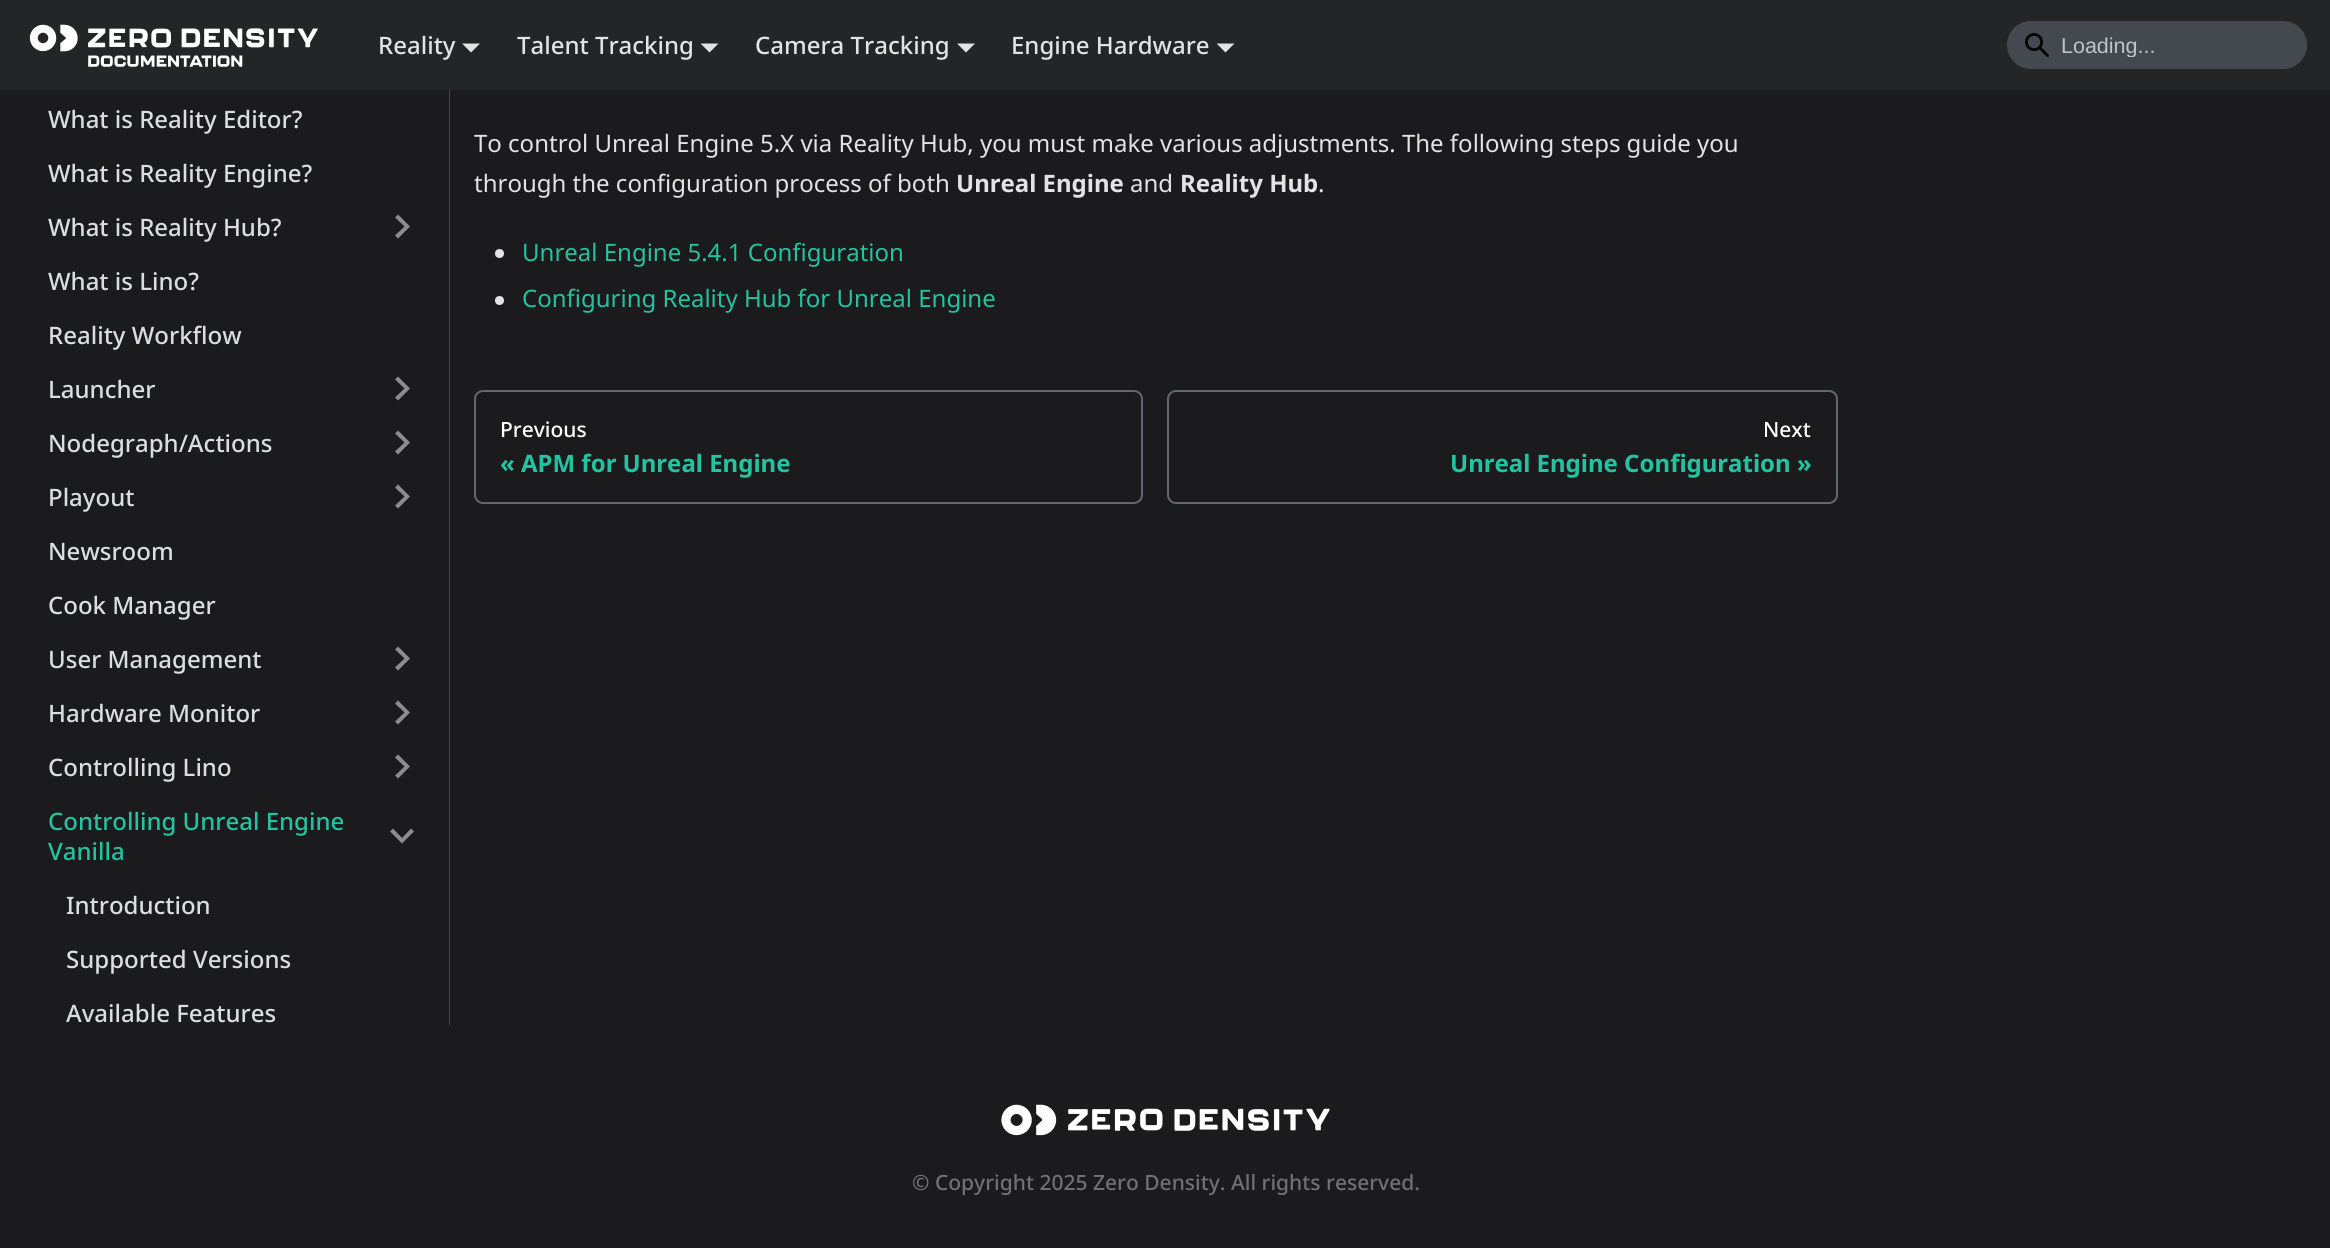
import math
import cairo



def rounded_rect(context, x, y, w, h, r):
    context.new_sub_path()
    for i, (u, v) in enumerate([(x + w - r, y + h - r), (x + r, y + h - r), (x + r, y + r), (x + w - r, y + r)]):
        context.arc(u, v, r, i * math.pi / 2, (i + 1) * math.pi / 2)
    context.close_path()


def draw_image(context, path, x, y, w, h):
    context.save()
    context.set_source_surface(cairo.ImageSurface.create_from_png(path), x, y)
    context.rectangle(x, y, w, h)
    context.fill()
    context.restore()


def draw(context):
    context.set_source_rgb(27 / 255, 27 / 255, 29 / 255)
    context.paint()
    context.set_source_rgb(36 / 255, 37 / 255, 38 / 255)
    context.rectangle(0, 0, 2330, 90)
    context.fill()
    draw_image(context, "images/1.png", 29, 24, 289, 43)
    context.set_source_rgb(227 / 255, 227 / 255, 227 / 255)
    context.new_path()
    context.move_to(462, 43.5)
    context.line_to(480, 43.5)
    context.line_to(471, 52.5)
    context.close_path()
    context.fill()
    context.new_path()
    context.move_to(700.5, 43.5)
    context.line_to(718.5, 43.5)
    context.line_to(709.5, 52.5)
    context.close_path()
    context.fill()
    context.new_path()
    context.move_to(957, 43.5)
    context.line_to(975, 43.5)
    context.line_to(966, 52.5)
    context.close_path()
    context.fill()
    context.new_path()
    context.move_to(1216.5, 43.5)
    context.line_to(1234.5, 43.5)
    context.line_to(1225.5, 52.5)
    context.close_path()
    context.fill()
    context.set_source_rgb(68 / 255, 73 / 255, 80 / 255)
    rounded_rect(context, 2007, 21, 300, 48, 24)
    context.fill()
    draw_image(context, "images/2.png", 2025, 33, 24, 24)
    context.rectangle(449, 90, 1, 935)
    context.fill()
    context.set_source_rgb(140 / 255, 140 / 255, 141 / 255)
    context.new_path()
    context.move_to(395, 217.5)
    context.line_to(404.5, 226.5)
    context.line_to(395, 235.5)
    context.line_to(398, 238.5)
    context.line_to(410, 226.5)
    context.line_to(398, 214.5)
    context.close_path()
    context.fill()
    context.new_path()
    context.move_to(395, 379.5)
    context.line_to(404.5, 388.5)
    context.line_to(395, 397.5)
    context.line_to(398, 400.5)
    context.line_to(410, 388.5)
    context.line_to(398, 376.5)
    context.close_path()
    context.fill()
    context.new_path()
    context.move_to(395, 433.5)
    context.line_to(404.5, 442.5)
    context.line_to(395, 451.5)
    context.line_to(398, 454.5)
    context.line_to(410, 442.5)
    context.line_to(398, 430.5)
    context.close_path()
    context.fill()
    context.new_path()
    context.move_to(395, 487.5)
    context.line_to(404.5, 496.5)
    context.line_to(395, 505.5)
    context.line_to(398, 508.5)
    context.line_to(410, 496.5)
    context.line_to(398, 484.5)
    context.close_path()
    context.fill()
    context.new_path()
    context.move_to(395, 649.5)
    context.line_to(404.5, 658.5)
    context.line_to(395, 667.5)
    context.line_to(398, 670.5)
    context.line_to(410, 658.5)
    context.line_to(398, 646.5)
    context.close_path()
    context.fill()
    context.new_path()
    context.move_to(395, 703.5)
    context.line_to(404.5, 712.5)
    context.line_to(395, 721.5)
    context.line_to(398, 724.5)
    context.line_to(410, 712.5)
    context.line_to(398, 700.5)
    context.close_path()
    context.fill()
    context.new_path()
    context.move_to(395, 757.5)
    context.line_to(404.5, 766.5)
    context.line_to(395, 775.5)
    context.line_to(398, 778.5)
    context.line_to(410, 766.5)
    context.line_to(398, 754.5)
    context.close_path()
    context.fill()
    context.new_path()
    context.move_to(411, 828.5)
    context.line_to(402, 838)
    context.line_to(393, 828.5)
    context.line_to(390, 831.5)
    context.line_to(402, 843.5)
    context.line_to(414, 831.5)
    context.close_path()
    context.fill()
    context.set_source_rgb(227 / 255, 227 / 255, 227 / 255)
    context.arc(499.5, 253.5, 4.5, 0, 2 * math.pi)
    context.fill()
    context.arc(499.5, 300.5, 4.5, 0, 2 * math.pi)
    context.fill()
    rounded_rect(context, 475, 391, 667, 112, 8)
    context.set_source_rgb(96 / 255, 103 / 255, 112 / 255)
    context.stroke()
    rounded_rect(context, 1168, 391, 669, 112, 8)
    context.stroke()
    draw_image(context, "images/3.png", 1001, 1104, 329, 32)
    context.select_font_face("Noto Sans Medium")
    context.set_font_size(24)
    context.set_source_rgb(227 / 255, 227 / 255, 227 / 255)
    context.move_to(378, 54)
    context.show_text("Reality")
    context.move_to(517, 54)
    context.show_text("Talent Tracking")
    context.move_to(755, 54)
    context.show_text("Camera Tracking")
    context.move_to(1011, 54)
    context.show_text("Engine Hardware")
    context.save()
    context.rectangle(2061, 33, 213, 24)
    context.clip()
    context.select_font_face("Liberation Sans")
    context.set_font_size(21.5)
    context.set_source_rgb(190 / 255, 195 / 255, 201 / 255)
    context.move_to(2061, 53)
    context.show_text("Loading...")
    context.restore()
    context.set_source_rgb(218 / 255, 221 / 255, 225 / 255)
    context.move_to(48, 128)
    context.show_text("What is Reality Editor?")
    context.move_to(48, 182)
    context.show_text("What is Reality Engine?")
    context.move_to(48, 236)
    context.show_text("What is Reality Hub?")
    context.move_to(48, 290)
    context.show_text("What is Lino?")
    context.move_to(48, 344)
    context.show_text("Reality Workflow")
    context.move_to(48, 398)
    context.show_text("Launcher")
    context.move_to(48, 452)
    context.show_text("Nodegraph/Actions")
    context.move_to(48, 506)
    context.show_text("Playout")
    context.move_to(48, 560)
    context.show_text("Newsroom")
    context.move_to(48, 614)
    context.show_text("Cook Manager")
    context.move_to(48, 668)
    context.show_text("User Management")
    context.move_to(48, 722)
    context.show_text("Hardware Monitor")
    context.move_to(48, 776)
    context.show_text("Controlling Lino")
    context.set_source_rgb(37 / 255, 194 / 255, 160 / 255)
    context.move_to(48, 830)
    context.show_text("Controlling Unreal Engine")
    context.move_to(48, 860)
    context.show_text("Vanilla")
    context.set_source_rgb(218 / 255, 221 / 255, 225 / 255)
    context.move_to(66, 914)
    context.show_text("Introduction")
    context.move_to(66, 968)
    context.show_text("Supported Versions")
    context.move_to(66, 1022)
    context.show_text("Available Features")
    context.select_font_face("Noto Sans")
    context.set_source_rgb(227 / 255, 227 / 255, 227 / 255)
    context.move_to(474, 152)
    context.show_text("To control Unreal Engine 5.X via Reality Hub, you must make various adjustments. The following steps guide you")
    context.move_to(474, 192)
    context.show_text("through the configuration process of both")
    context.select_font_face("Noto Sans", cairo.FontSlant.NORMAL, cairo.FontWeight.BOLD)
    context.move_to(956, 192)
    context.show_text("Unreal Engine")
    context.select_font_face("Noto Sans")
    context.move_to(1130, 192)
    context.show_text("and")
    context.select_font_face("Noto Sans", cairo.FontSlant.NORMAL, cairo.FontWeight.BOLD)
    context.move_to(1180, 192)
    context.show_text("Reality Hub")
    context.select_font_face("Noto Sans")
    context.move_to(1318, 192)
    context.show_text(".")
    context.set_source_rgb(37 / 255, 194 / 255, 160 / 255)
    context.move_to(522, 261)
    context.show_text("Unreal Engine 5.4.1 Configuration")
    context.move_to(522, 307)
    context.show_text("Configuring Reality Hub for Unreal Engine")
    context.select_font_face("Noto Sans Medium")
    context.set_font_size(21)
    context.set_source_rgb(1, 1, 1)
    context.move_to(500, 437)
    context.show_text("Previous")
    context.select_font_face("Noto Sans", cairo.FontSlant.NORMAL, cairo.FontWeight.BOLD)
    context.set_font_size(24)
    context.set_source_rgb(37 / 255, 194 / 255, 160 / 255)
    context.move_to(500, 472)
    context.show_text("« APM for Unreal Engine")
    context.select_font_face("Noto Sans Medium")
    context.set_font_size(21)
    context.set_source_rgb(1, 1, 1)
    context.move_to(1763, 437)
    context.show_text("Next")
    context.select_font_face("Noto Sans", cairo.FontSlant.NORMAL, cairo.FontWeight.BOLD)
    context.set_font_size(24)
    context.set_source_rgb(37 / 255, 194 / 255, 160 / 255)
    context.move_to(1450, 472)
    context.show_text("Unreal Engine Configuration »")
    context.select_font_face("Noto Sans Medium")
    context.set_font_size(21)
    context.set_source_rgb(113 / 255, 113 / 255, 113 / 255)
    context.move_to(912, 1190)
    context.show_text("© Copyright 2025 Zero Density. All rights reserved.")


surface = cairo.ImageSurface(cairo.Format.RGB24, 2330, 1248)
context = cairo.Context(surface)
options = cairo.FontOptions()
options.set_hint_metrics(cairo.HintMetrics.OFF)
options.set_hint_style(cairo.HintStyle.NONE)
context.set_font_options(options)
context.set_miter_limit(4)
draw(context)
surface.write_to_png("out.png")
